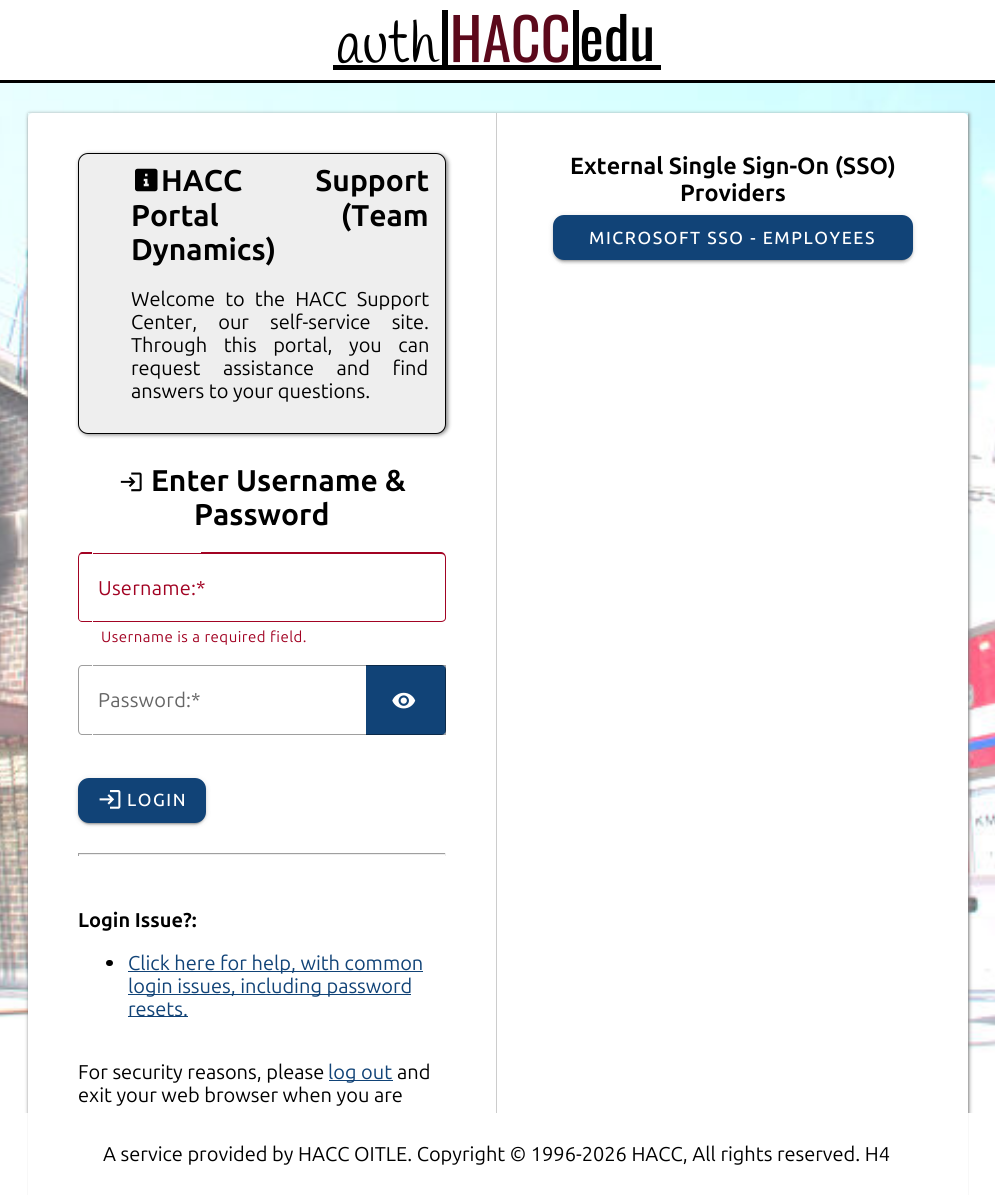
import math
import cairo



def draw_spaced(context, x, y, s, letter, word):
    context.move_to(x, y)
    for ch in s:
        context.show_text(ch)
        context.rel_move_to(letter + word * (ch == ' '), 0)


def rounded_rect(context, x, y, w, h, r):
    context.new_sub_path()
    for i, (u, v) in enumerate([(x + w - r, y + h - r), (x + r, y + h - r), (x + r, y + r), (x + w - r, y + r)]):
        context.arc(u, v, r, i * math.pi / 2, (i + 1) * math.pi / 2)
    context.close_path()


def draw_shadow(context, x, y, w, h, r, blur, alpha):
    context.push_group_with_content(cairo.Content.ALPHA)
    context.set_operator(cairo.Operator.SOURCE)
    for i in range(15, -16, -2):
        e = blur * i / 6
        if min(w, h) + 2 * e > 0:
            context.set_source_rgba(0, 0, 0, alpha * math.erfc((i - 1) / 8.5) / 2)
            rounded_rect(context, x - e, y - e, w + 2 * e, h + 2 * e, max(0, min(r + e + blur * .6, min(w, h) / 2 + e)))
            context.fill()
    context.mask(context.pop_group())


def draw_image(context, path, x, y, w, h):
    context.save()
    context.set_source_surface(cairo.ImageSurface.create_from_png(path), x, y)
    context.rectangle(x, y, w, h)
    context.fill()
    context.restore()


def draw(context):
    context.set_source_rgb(1, 1, 1)
    context.paint()
    context.set_source_rgb(0, 0, 0)
    context.rectangle(0, 80, 995, 3)
    context.fill()
    draw_image(context, "images/1.png", 333, 10, 328, 60)
    draw_image(context, "images/2.png", 0, 83, 995, 986)
    context.save()
    context.rectangle(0, 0, 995, 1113)
    context.clip()
    context.set_fill_rule(cairo.FillRule.EVEN_ODD)
    context.new_path()
    context.move_to(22, 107)
    context.line_to(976, 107)
    context.line_to(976, 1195)
    context.line_to(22, 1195)
    context.close_path()
    context.move_to(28, 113)
    context.line_to(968, 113)
    context.line_to(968, 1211)
    context.line_to(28, 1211)
    context.close_path()
    context.clip()
    context.set_source_rgb(136 / 255, 136 / 255, 136 / 255)
    draw_shadow(context, 29, 114, 940, 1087, 0, 2, 1)
    context.restore()
    context.save()
    context.rectangle(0, 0, 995, 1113)
    context.clip()
    context.set_source_rgb(0, 0, 0)
    draw_shadow(context, 28, 114, 940, 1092, 5, 2, 0.12)
    context.restore()
    context.save()
    context.set_fill_rule(cairo.FillRule.EVEN_ODD)
    context.new_path()
    context.move_to(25, 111)
    context.line_to(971, 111)
    context.line_to(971, 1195)
    context.line_to(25, 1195)
    context.close_path()
    context.move_to(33, 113)
    context.line_to(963, 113)
    context.curve_to(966, 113, 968, 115, 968, 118)
    context.line_to(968, 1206)
    context.curve_to(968, 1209, 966, 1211, 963, 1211)
    context.line_to(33, 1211)
    context.curve_to(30, 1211, 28, 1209, 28, 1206)
    context.line_to(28, 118)
    context.curve_to(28, 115, 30, 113, 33, 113)
    context.close_path()
    context.clip()
    context.set_source_rgb(0, 0, 0)
    draw_shadow(context, 28, 114, 940, 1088, 5, 0.5, 0.14)
    context.restore()
    context.set_source_rgb(1, 1, 1)
    context.new_path()
    context.move_to(33, 113)
    context.line_to(963, 113)
    context.curve_to(966, 113, 968, 115, 968, 118)
    context.line_to(968, 1113)
    context.line_to(28, 1113)
    context.line_to(28, 118)
    context.curve_to(28, 115, 30, 113, 33, 113)
    context.close_path()
    context.fill()
    context.set_source_rgb(204 / 255, 204 / 255, 204 / 255)
    context.rectangle(496, 113, 1, 1000)
    context.fill()
    context.set_source_rgb(136 / 255, 136 / 255, 136 / 255)
    draw_shadow(context, 79, 154, 369, 281, 10, 2, 1)
    context.set_source_rgb(238 / 255, 238 / 255, 238 / 255)
    rounded_rect(context, 78.5, 153.5, 367, 280, 9.5)
    context.fill_preserve()
    context.set_source_rgb(0, 0, 0)
    context.set_line_width(1)
    context.stroke()
    draw_image(context, "images/3.png", 135, 168, 23, 24)
    draw_image(context, "images/4.png", 120, 472, 22, 20)
    context.set_source_rgb(162 / 255, 3 / 255, 35 / 255)
    context.set_fill_rule(cairo.FillRule.EVEN_ODD)
    context.new_path()
    context.move_to(82, 552)
    context.line_to(92, 552)
    context.line_to(92, 622)
    context.line_to(82, 622)
    context.curve_to(80, 622, 78, 620, 78, 618)
    context.line_to(78, 558)
    context.curve_to(78, 555, 80, 552, 82, 552)
    context.close_path()
    context.move_to(82, 554)
    context.line_to(92, 554)
    context.line_to(92, 621)
    context.line_to(82, 621)
    context.curve_to(80, 621, 79, 620, 79, 618)
    context.line_to(79, 558)
    context.curve_to(79, 555, 80, 554, 82, 554)
    context.close_path()
    context.fill()
    context.rectangle(93, 553, 108, 1)
    context.fill()
    context.rectangle(93, 621, 108, 1)
    context.fill()
    context.new_path()
    context.move_to(201, 552)
    context.line_to(441, 552)
    context.curve_to(444, 552, 446, 555, 446, 558)
    context.line_to(446, 618)
    context.curve_to(446, 620, 444, 622, 441, 622)
    context.line_to(201, 622)
    context.close_path()
    context.move_to(201, 554)
    context.line_to(441, 554)
    context.curve_to(443, 554, 445, 555, 445, 558)
    context.line_to(445, 618)
    context.curve_to(445, 620, 443, 621, 441, 621)
    context.line_to(201, 621)
    context.close_path()
    context.fill()
    context.set_source_rgb(158 / 255, 158 / 255, 158 / 255)
    context.new_path()
    context.move_to(82, 665)
    context.line_to(92, 665)
    context.line_to(92, 735)
    context.line_to(82, 735)
    context.curve_to(80, 735, 78, 733, 78, 730)
    context.line_to(78, 670)
    context.curve_to(78, 667, 80, 665, 82, 665)
    context.close_path()
    context.move_to(82, 666)
    context.line_to(92, 666)
    context.line_to(92, 734)
    context.line_to(82, 734)
    context.curve_to(80, 734, 79, 732, 79, 730)
    context.line_to(79, 670)
    context.curve_to(79, 668, 80, 666, 82, 666)
    context.close_path()
    context.fill()
    context.rectangle(93, 665, 103, 1)
    context.fill()
    context.rectangle(93, 734, 103, 1)
    context.fill()
    context.set_source_rgb(17 / 255, 67 / 255, 119 / 255)
    context.new_path()
    context.move_to(366, 665)
    context.line_to(441, 665)
    context.curve_to(444, 665, 446, 667, 446, 670)
    context.line_to(446, 730)
    context.curve_to(446, 733, 444, 735, 441, 735)
    context.line_to(366, 735)
    context.close_path()
    context.fill()
    context.set_source_rgba(0, 0, 0, 0.38)
    context.set_fill_rule(cairo.FillRule.WINDING)
    context.new_path()
    context.move_to(196, 665)
    context.line_to(446, 665)
    context.line_to(445, 666)
    context.line_to(196, 666)
    context.close_path()
    context.fill()
    context.new_path()
    context.move_to(446, 665)
    context.line_to(446, 735)
    context.line_to(445, 734)
    context.line_to(445, 666)
    context.close_path()
    context.fill()
    context.new_path()
    context.move_to(446, 735)
    context.line_to(196, 735)
    context.line_to(196, 734)
    context.line_to(445, 734)
    context.close_path()
    context.fill()
    draw_image(context, "images/5.png", 392, 692, 24, 17)
    context.set_source_rgb(0, 0, 0)
    draw_shadow(context, 78, 779, 128, 45, 11, 3, 0.12)
    draw_shadow(context, 78, 780, 128, 45, 11, 1, 0.14)
    draw_shadow(context, 80, 784, 124, 40, 9, 0.5, 0.2)
    context.set_source_rgb(17 / 255, 67 / 255, 119 / 255)
    rounded_rect(context, 78, 778, 128, 45, 11)
    context.fill()
    draw_image(context, "images/6.png", 99, 790, 22, 19)
    context.set_source_rgb(159 / 255, 159 / 255, 159 / 255)
    context.rectangle(78, 853, 368, 1)
    context.fill()
    context.set_source_rgb(238 / 255, 238 / 255, 238 / 255)
    context.rectangle(445, 853, 1, 3)
    context.fill()
    context.rectangle(78, 854, 368, 1)
    context.fill()
    context.set_source_rgb(159 / 255, 159 / 255, 159 / 255)
    context.rectangle(78, 853, 1, 3)
    context.fill()
    context.set_source_rgb(0, 0, 0)
    rounded_rect(context, 106, 960, 7, 6, 3)
    context.fill()
    context.set_source_rgb(17 / 255, 67 / 255, 119 / 255)
    context.rectangle(128, 971, 295, 1)
    context.fill()
    context.rectangle(128, 994, 283, 1)
    context.fill()
    context.rectangle(128, 1016, 60, 1)
    context.fill()
    context.rectangle(329, 1080, 64, 1)
    context.fill()
    context.set_source_rgb(0, 0, 0)
    draw_shadow(context, 553, 216, 360, 45, 11, 3, 0.12)
    draw_shadow(context, 553, 218, 360, 45, 11, 1, 0.14)
    draw_shadow(context, 555, 221, 355, 40, 9, 0.5, 0.2)
    context.set_source_rgb(17 / 255, 67 / 255, 119 / 255)
    rounded_rect(context, 553, 215, 360, 45, 11)
    context.fill()
    context.select_font_face("Ubuntu", cairo.FontSlant.NORMAL, cairo.FontWeight.BOLD)
    context.set_font_size(30)
    context.set_source_rgb(0, 0, 0)
    draw_spaced(context, 161, 191, "HACC Support", 0, 66)
    draw_spaced(context, 131, 226, "Portal (Team", 0, 115)
    context.move_to(131, 260)
    context.show_text("Dynamics)")
    context.select_font_face("Ubuntu")
    context.set_font_size(20)
    draw_spaced(context, 131, 306, "Welcome to the HACC Support", 0, 5.5)
    draw_spaced(context, 131, 329, "Center, our self-service site.", 0, 16.5)
    draw_spaced(context, 131, 352, "Through this portal, you can", 0, 12)
    draw_spaced(context, 131, 375, "request assistance and find", 0, 18)
    context.move_to(131, 398)
    context.show_text("answers to your questions.")
    context.select_font_face("Ubuntu", cairo.FontSlant.NORMAL, cairo.FontWeight.BOLD)
    context.set_font_size(30)
    context.move_to(151, 491)
    context.show_text("Enter Username &")
    context.move_to(194, 525)
    context.show_text("Password")
    context.select_font_face("Ubuntu")
    context.set_font_size(20)
    context.set_source_rgb(162 / 255, 3 / 255, 35 / 255)
    draw_spaced(context, 98, 595, "Username:", 0.25, 0)
    draw_spaced(context, 196, 595, "*", 0.25, 0)
    context.set_font_size(15)
    draw_spaced(context, 101, 642, "Username is a required field.", 0.5, 0)
    context.set_font_size(20)
    context.set_source_rgb(102 / 255, 102 / 255, 102 / 255)
    draw_spaced(context, 98, 707, "Password:", 0.25, 0)
    draw_spaced(context, 191, 707, "*", 0.25, 0)
    context.select_font_face("Ubuntu Medium")
    context.set_font_size(17.5)
    context.set_source_rgb(1, 1, 1)
    draw_spaced(context, 127, 806, "LOGIN", 1.55, 0)
    context.select_font_face("Ubuntu", cairo.FontSlant.NORMAL, cairo.FontWeight.BOLD)
    context.set_font_size(20)
    context.set_source_rgb(0, 0, 0)
    context.move_to(78, 927)
    context.show_text("Login Issue?:")
    context.select_font_face("Ubuntu")
    context.set_source_rgb(17 / 255, 67 / 255, 119 / 255)
    context.move_to(128, 970)
    context.show_text("Click here for help, with common")
    context.move_to(128, 993)
    context.show_text("login issues, including password")
    context.move_to(128, 1016)
    context.show_text("resets.")
    context.set_source_rgb(0, 0, 0)
    context.move_to(78, 1079)
    context.show_text("For security reasons, please")
    context.set_source_rgb(17 / 255, 67 / 255, 119 / 255)
    context.move_to(328, 1079)
    context.show_text("log out")
    context.set_source_rgb(0, 0, 0)
    context.move_to(397, 1079)
    context.show_text("and")
    context.move_to(78, 1102)
    context.show_text("exit your web browser when you are")
    context.select_font_face("Ubuntu", cairo.FontSlant.NORMAL, cairo.FontWeight.BOLD)
    context.set_font_size(23.4)
    context.move_to(570, 174)
    context.show_text("External Single Sign-On (SSO)")
    context.move_to(680, 201)
    context.show_text("Providers")
    context.select_font_face("Ubuntu Medium")
    context.set_font_size(17.5)
    context.set_source_rgb(1, 1, 1)
    draw_spaced(context, 589, 244, "MICROSOFT SSO - EMPLOYEES", 1.55, 0)
    context.select_font_face("Ubuntu")
    context.set_font_size(20)
    context.set_source_rgb(0, 0, 0)
    context.move_to(103, 1161)
    context.show_text("A service provided by HACC OITLE. Copyright © 1996-2026 HACC, All rights reserved. H4")


surface = cairo.ImageSurface(cairo.Format.RGB24, 995, 1195)
context = cairo.Context(surface)
options = cairo.FontOptions()
options.set_hint_metrics(cairo.HintMetrics.OFF)
options.set_hint_style(cairo.HintStyle.NONE)
context.set_font_options(options)
context.set_miter_limit(4)
draw(context)
surface.write_to_png("out.png")
